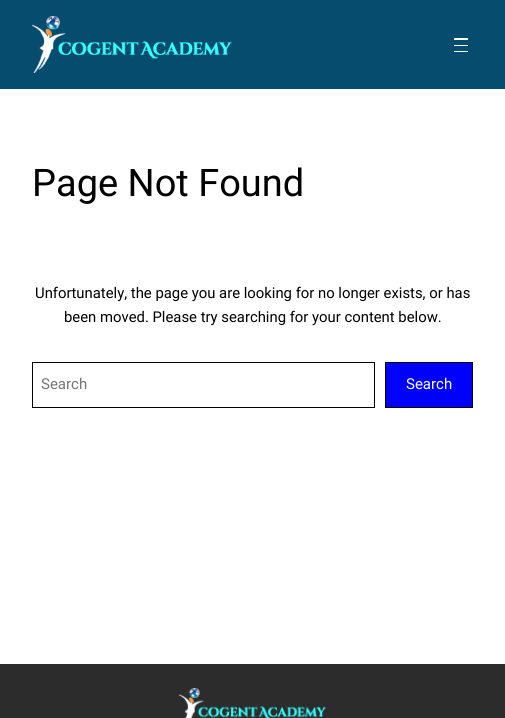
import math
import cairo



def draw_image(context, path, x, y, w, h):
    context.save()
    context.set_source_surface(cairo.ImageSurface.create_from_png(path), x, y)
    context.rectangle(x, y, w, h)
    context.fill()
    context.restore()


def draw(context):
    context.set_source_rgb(1, 1, 1)
    context.paint()
    context.set_source_rgb(5 / 255, 76 / 255, 111 / 255)
    context.rectangle(0, 0, 505, 89)
    context.fill()
    draw_image(context, "images/1.png", 32, 16, 200, 57)
    context.set_source_rgb(1, 1, 253 / 255)
    context.rectangle(454, 38, 14, 2)
    context.fill()
    context.rectangle(454, 45, 14, 1)
    context.fill()
    context.rectangle(454, 51, 14, 1)
    context.fill()
    context.rectangle(32.5, 362.5, 342, 45)
    context.set_source_rgb(0, 0, 1 / 255)
    context.set_line_width(1)
    context.stroke()
    context.set_source_rgb(0, 0, 1)
    context.rectangle(385.5, 362.5, 87, 45)
    context.fill_preserve()
    context.set_source_rgb(0, 0, 1 / 255)
    context.stroke()
    context.set_source_rgb(44 / 255, 44 / 255, 44 / 255)
    context.rectangle(0, 664, 505, 54)
    context.fill()
    draw_image(context, "images/2.png", 179, 688, 147, 30)
    context.select_font_face("Roboto")
    context.set_font_size(38)
    context.set_source_rgb(0, 0, 0)
    context.move_to(32, 196)
    context.show_text("Page Not Found")
    context.set_font_size(14.85)
    context.move_to(35, 298)
    context.show_text("Unfortunately, the page you are looking for no longer exists, or has")
    context.move_to(64, 322)
    context.show_text("been moved. Please try searching for your content below.")
    context.set_font_size(15)
    context.set_source_rgb(117 / 255, 117 / 255, 117 / 255)
    context.move_to(41, 389)
    context.show_text("Search")
    context.set_source_rgb(1, 1, 1)
    context.move_to(406, 389)
    context.show_text("Search")


surface = cairo.ImageSurface(cairo.Format.RGB24, 505, 718)
context = cairo.Context(surface)
options = cairo.FontOptions()
options.set_hint_metrics(cairo.HintMetrics.OFF)
options.set_hint_style(cairo.HintStyle.NONE)
context.set_font_options(options)
context.set_miter_limit(4)
draw(context)
surface.write_to_png("out.png")
